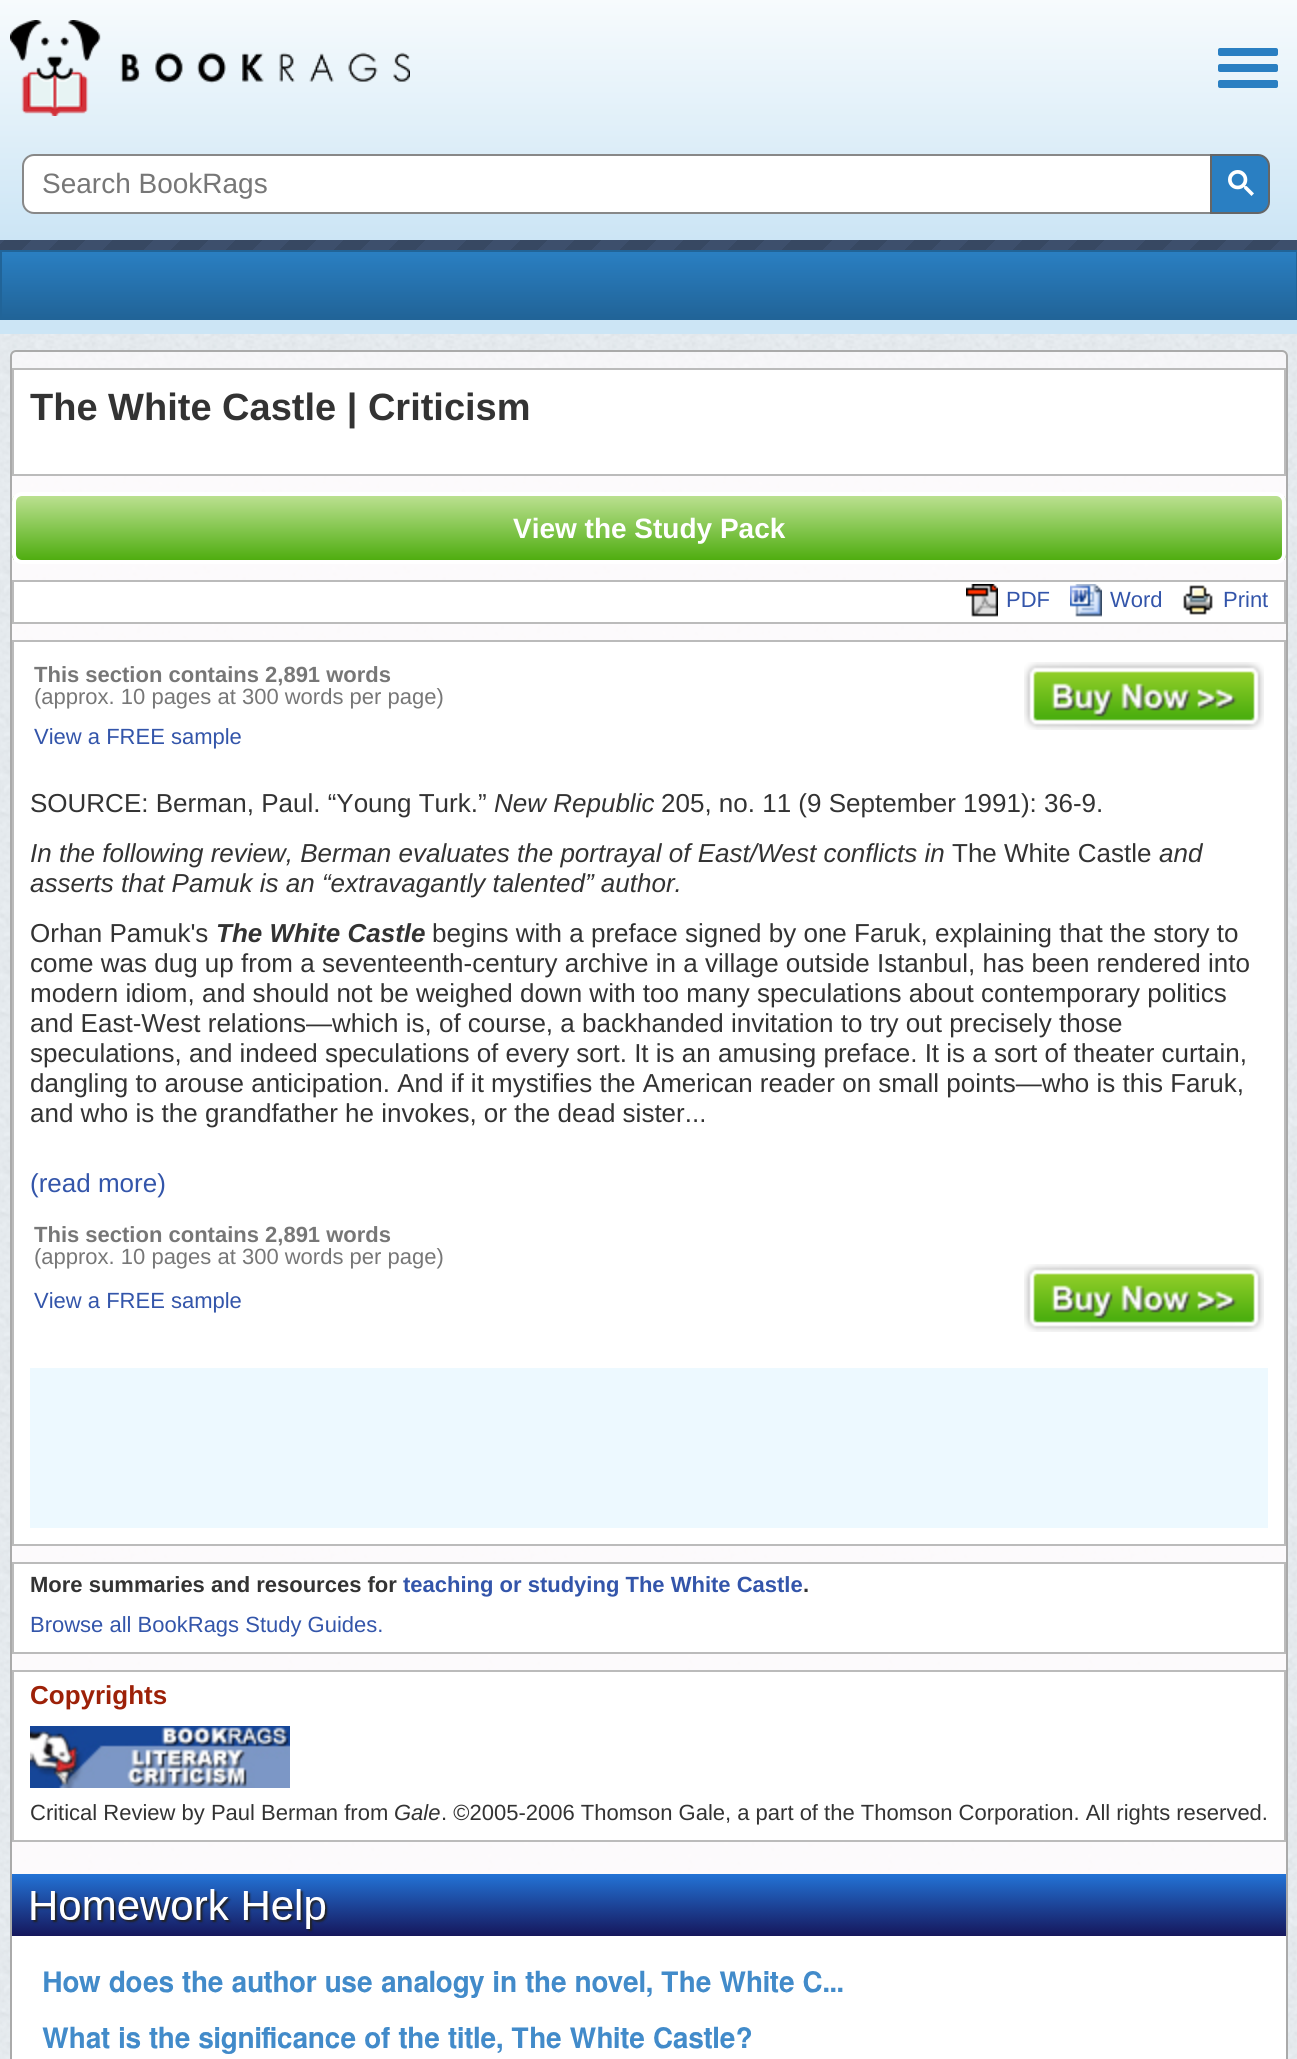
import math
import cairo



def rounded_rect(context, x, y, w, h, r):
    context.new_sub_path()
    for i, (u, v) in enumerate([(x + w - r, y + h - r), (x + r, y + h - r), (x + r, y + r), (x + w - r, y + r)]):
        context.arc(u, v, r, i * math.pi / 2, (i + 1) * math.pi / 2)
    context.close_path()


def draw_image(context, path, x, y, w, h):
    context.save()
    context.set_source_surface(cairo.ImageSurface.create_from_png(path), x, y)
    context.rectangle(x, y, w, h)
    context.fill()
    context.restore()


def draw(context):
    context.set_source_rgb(1, 1, 1)
    context.paint()
    draw_image(context, "images/1.png", 0, 334, 1297, 1725)
    gradient = cairo.LinearGradient(649, 0, 649, 240)
    gradient.add_color_stop_rgba(0, 247 / 255, 251 / 255, 253 / 255, 1)
    gradient.add_color_stop_rgba(1, 204 / 255, 229 / 255, 245 / 255, 1)
    context.set_source(gradient)
    context.rectangle(0, 0, 1297, 240)
    context.fill()
    draw_image(context, "images/2.png", 10, 20, 400, 96)
    context.set_source_rgb(42 / 255, 127 / 255, 194 / 255)
    rounded_rect(context, 1218, 48, 60, 8, 2)
    context.fill()
    rounded_rect(context, 1218, 64, 60, 8, 2)
    context.fill()
    rounded_rect(context, 1218, 80, 60, 8, 2)
    context.fill()
    context.set_source_rgb(1, 1, 1)
    context.new_path()
    context.move_to(34, 155)
    context.line_to(1211, 155)
    context.line_to(1211, 213)
    context.line_to(34, 213)
    context.curve_to(28, 213, 23, 208, 23, 202)
    context.line_to(23, 166)
    context.curve_to(23, 160, 28, 155, 34, 155)
    context.close_path()
    context.fill_preserve()
    context.set_source_rgb(136 / 255, 136 / 255, 136 / 255)
    context.stroke()
    context.set_source_rgb(42 / 255, 127 / 255, 194 / 255)
    context.new_path()
    context.move_to(1211, 155)
    context.line_to(1258, 155)
    context.curve_to(1264, 155, 1269, 160, 1269, 166)
    context.line_to(1269, 202)
    context.curve_to(1269, 208, 1264, 213, 1258, 213)
    context.line_to(1211, 213)
    context.close_path()
    context.fill_preserve()
    context.set_source_rgb(102 / 255, 102 / 255, 102 / 255)
    context.stroke()
    draw_image(context, "images/3.png", 1228, 170, 26, 26)
    gradient = cairo.LinearGradient(976, 572, 297, -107)
    gradient.add_color_stop_rgba(0, 61 / 255, 79 / 255, 108 / 255, 1)
    gradient.add_color_stop_rgba(0.02, 61 / 255, 79 / 255, 108 / 255, 1)
    gradient.add_color_stop_rgba(0.02, 55 / 255, 72 / 255, 98 / 255, 1)
    gradient.add_color_stop_rgba(0.04, 55 / 255, 72 / 255, 98 / 255, 1)
    gradient.add_color_stop_rgba(0.04, 61 / 255, 79 / 255, 108 / 255, 1)
    gradient.add_color_stop_rgba(0.06, 61 / 255, 79 / 255, 108 / 255, 1)
    gradient.add_color_stop_rgba(0.06, 55 / 255, 72 / 255, 98 / 255, 1)
    gradient.add_color_stop_rgba(0.08, 55 / 255, 72 / 255, 98 / 255, 1)
    gradient.add_color_stop_rgba(0.08, 61 / 255, 79 / 255, 108 / 255, 1)
    gradient.add_color_stop_rgba(0.1, 61 / 255, 79 / 255, 108 / 255, 1)
    gradient.add_color_stop_rgba(0.1, 55 / 255, 72 / 255, 98 / 255, 1)
    gradient.add_color_stop_rgba(0.12, 55 / 255, 72 / 255, 98 / 255, 1)
    gradient.add_color_stop_rgba(0.12, 61 / 255, 79 / 255, 108 / 255, 1)
    gradient.add_color_stop_rgba(0.15, 61 / 255, 79 / 255, 108 / 255, 1)
    gradient.add_color_stop_rgba(0.15, 55 / 255, 72 / 255, 98 / 255, 1)
    gradient.add_color_stop_rgba(0.17, 55 / 255, 72 / 255, 98 / 255, 1)
    gradient.add_color_stop_rgba(0.17, 61 / 255, 79 / 255, 108 / 255, 1)
    gradient.add_color_stop_rgba(0.19, 61 / 255, 79 / 255, 108 / 255, 1)
    gradient.add_color_stop_rgba(0.19, 55 / 255, 72 / 255, 98 / 255, 1)
    gradient.add_color_stop_rgba(0.21, 55 / 255, 72 / 255, 98 / 255, 1)
    gradient.add_color_stop_rgba(0.21, 61 / 255, 79 / 255, 108 / 255, 1)
    gradient.add_color_stop_rgba(0.23, 61 / 255, 79 / 255, 108 / 255, 1)
    gradient.add_color_stop_rgba(0.23, 55 / 255, 72 / 255, 98 / 255, 1)
    gradient.add_color_stop_rgba(0.25, 55 / 255, 72 / 255, 98 / 255, 1)
    gradient.add_color_stop_rgba(0.25, 61 / 255, 79 / 255, 108 / 255, 1)
    gradient.add_color_stop_rgba(0.27, 61 / 255, 79 / 255, 108 / 255, 1)
    gradient.add_color_stop_rgba(0.27, 55 / 255, 72 / 255, 98 / 255, 1)
    gradient.add_color_stop_rgba(0.29, 55 / 255, 72 / 255, 98 / 255, 1)
    gradient.add_color_stop_rgba(0.29, 61 / 255, 79 / 255, 108 / 255, 1)
    gradient.add_color_stop_rgba(0.31, 61 / 255, 79 / 255, 108 / 255, 1)
    gradient.add_color_stop_rgba(0.31, 55 / 255, 72 / 255, 98 / 255, 1)
    gradient.add_color_stop_rgba(0.33, 55 / 255, 72 / 255, 98 / 255, 1)
    gradient.add_color_stop_rgba(0.33, 61 / 255, 79 / 255, 108 / 255, 1)
    gradient.add_color_stop_rgba(0.35, 61 / 255, 79 / 255, 108 / 255, 1)
    gradient.add_color_stop_rgba(0.35, 55 / 255, 72 / 255, 98 / 255, 1)
    gradient.add_color_stop_rgba(0.38, 55 / 255, 72 / 255, 98 / 255, 1)
    gradient.add_color_stop_rgba(0.38, 61 / 255, 79 / 255, 108 / 255, 1)
    gradient.add_color_stop_rgba(0.4, 61 / 255, 79 / 255, 108 / 255, 1)
    gradient.add_color_stop_rgba(0.4, 55 / 255, 72 / 255, 98 / 255, 1)
    gradient.add_color_stop_rgba(0.42, 55 / 255, 72 / 255, 98 / 255, 1)
    gradient.add_color_stop_rgba(0.42, 61 / 255, 79 / 255, 108 / 255, 1)
    gradient.add_color_stop_rgba(0.44, 61 / 255, 79 / 255, 108 / 255, 1)
    gradient.add_color_stop_rgba(0.44, 55 / 255, 72 / 255, 98 / 255, 1)
    gradient.add_color_stop_rgba(0.46, 55 / 255, 72 / 255, 98 / 255, 1)
    gradient.add_color_stop_rgba(0.46, 61 / 255, 79 / 255, 108 / 255, 1)
    gradient.add_color_stop_rgba(0.48, 61 / 255, 79 / 255, 108 / 255, 1)
    gradient.add_color_stop_rgba(0.48, 55 / 255, 72 / 255, 98 / 255, 1)
    gradient.add_color_stop_rgba(0.5, 55 / 255, 72 / 255, 98 / 255, 1)
    gradient.add_color_stop_rgba(0.5, 61 / 255, 79 / 255, 108 / 255, 1)
    gradient.add_color_stop_rgba(0.52, 61 / 255, 79 / 255, 108 / 255, 1)
    gradient.add_color_stop_rgba(0.52, 55 / 255, 72 / 255, 98 / 255, 1)
    gradient.add_color_stop_rgba(0.54, 55 / 255, 72 / 255, 98 / 255, 1)
    gradient.add_color_stop_rgba(0.54, 61 / 255, 79 / 255, 108 / 255, 1)
    gradient.add_color_stop_rgba(0.56, 61 / 255, 79 / 255, 108 / 255, 1)
    gradient.add_color_stop_rgba(0.56, 55 / 255, 72 / 255, 98 / 255, 1)
    gradient.add_color_stop_rgba(0.58, 55 / 255, 72 / 255, 98 / 255, 1)
    gradient.add_color_stop_rgba(0.58, 61 / 255, 79 / 255, 108 / 255, 1)
    gradient.add_color_stop_rgba(0.6, 61 / 255, 79 / 255, 108 / 255, 1)
    gradient.add_color_stop_rgba(0.6, 55 / 255, 72 / 255, 98 / 255, 1)
    gradient.add_color_stop_rgba(0.62, 55 / 255, 72 / 255, 98 / 255, 1)
    gradient.add_color_stop_rgba(0.62, 61 / 255, 79 / 255, 108 / 255, 1)
    gradient.add_color_stop_rgba(0.65, 61 / 255, 79 / 255, 108 / 255, 1)
    gradient.add_color_stop_rgba(0.65, 55 / 255, 72 / 255, 98 / 255, 1)
    gradient.add_color_stop_rgba(0.67, 55 / 255, 72 / 255, 98 / 255, 1)
    gradient.add_color_stop_rgba(0.67, 61 / 255, 79 / 255, 108 / 255, 1)
    gradient.add_color_stop_rgba(0.69, 61 / 255, 79 / 255, 108 / 255, 1)
    gradient.add_color_stop_rgba(0.69, 55 / 255, 72 / 255, 98 / 255, 1)
    gradient.add_color_stop_rgba(0.71, 55 / 255, 72 / 255, 98 / 255, 1)
    gradient.add_color_stop_rgba(0.71, 61 / 255, 79 / 255, 108 / 255, 1)
    gradient.add_color_stop_rgba(0.73, 61 / 255, 79 / 255, 108 / 255, 1)
    gradient.add_color_stop_rgba(0.73, 55 / 255, 72 / 255, 98 / 255, 1)
    gradient.add_color_stop_rgba(0.75, 55 / 255, 72 / 255, 98 / 255, 1)
    gradient.add_color_stop_rgba(0.75, 61 / 255, 79 / 255, 108 / 255, 1)
    gradient.add_color_stop_rgba(0.77, 61 / 255, 79 / 255, 108 / 255, 1)
    gradient.add_color_stop_rgba(0.77, 55 / 255, 72 / 255, 98 / 255, 1)
    gradient.add_color_stop_rgba(0.79, 55 / 255, 72 / 255, 98 / 255, 1)
    gradient.add_color_stop_rgba(0.79, 61 / 255, 79 / 255, 108 / 255, 1)
    gradient.add_color_stop_rgba(0.81, 61 / 255, 79 / 255, 108 / 255, 1)
    gradient.add_color_stop_rgba(0.81, 55 / 255, 72 / 255, 98 / 255, 1)
    gradient.add_color_stop_rgba(0.83, 55 / 255, 72 / 255, 98 / 255, 1)
    gradient.add_color_stop_rgba(0.83, 61 / 255, 79 / 255, 108 / 255, 1)
    gradient.add_color_stop_rgba(0.85, 61 / 255, 79 / 255, 108 / 255, 1)
    gradient.add_color_stop_rgba(0.85, 55 / 255, 72 / 255, 98 / 255, 1)
    gradient.add_color_stop_rgba(0.88, 55 / 255, 72 / 255, 98 / 255, 1)
    gradient.add_color_stop_rgba(0.88, 61 / 255, 79 / 255, 108 / 255, 1)
    gradient.add_color_stop_rgba(0.9, 61 / 255, 79 / 255, 108 / 255, 1)
    gradient.add_color_stop_rgba(0.9, 55 / 255, 72 / 255, 98 / 255, 1)
    gradient.add_color_stop_rgba(0.92, 55 / 255, 72 / 255, 98 / 255, 1)
    gradient.add_color_stop_rgba(0.92, 61 / 255, 79 / 255, 108 / 255, 1)
    gradient.add_color_stop_rgba(0.94, 61 / 255, 79 / 255, 108 / 255, 1)
    gradient.add_color_stop_rgba(0.94, 55 / 255, 72 / 255, 98 / 255, 1)
    gradient.add_color_stop_rgba(0.96, 55 / 255, 72 / 255, 98 / 255, 1)
    gradient.add_color_stop_rgba(0.96, 61 / 255, 79 / 255, 108 / 255, 1)
    gradient.add_color_stop_rgba(0.98, 61 / 255, 79 / 255, 108 / 255, 1)
    gradient.add_color_stop_rgba(0.98, 55 / 255, 72 / 255, 98 / 255, 1)
    gradient.add_color_stop_rgba(1, 55 / 255, 72 / 255, 98 / 255, 1)
    context.set_source(gradient)
    context.rectangle(0, 240, 1297, 10)
    context.fill()
    gradient = cairo.LinearGradient(649, 252, 649, 318)
    gradient.add_color_stop_rgba(0, 42 / 255, 127 / 255, 194 / 255, 1)
    gradient.add_color_stop_rgba(1, 33 / 255, 100 / 255, 152 / 255, 1)
    context.set_source(gradient)
    context.rectangle(2, 252, 1294, 66)
    context.fill()
    context.rectangle(1, 251, 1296, 68)
    context.set_source_rgb(33 / 255, 100 / 255, 152 / 255)
    context.stroke()
    context.set_source_rgb(204 / 255, 229 / 255, 245 / 255)
    context.rectangle(0, 320, 1297, 14)
    context.fill()
    draw_image(context, "images/4.png", 10, 350, 1278, 1524)
    rounded_rect(context, 11, 351, 1276, 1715, 5)
    context.set_source_rgb(170 / 255, 170 / 255, 170 / 255)
    context.stroke()
    draw_image(context, "images/5.png", 12, 476, 1274, 1398)
    context.set_source_rgb(1, 1, 1)
    context.rectangle(13, 369, 1272, 106)
    context.fill_preserve()
    context.set_source_rgb(187 / 255, 187 / 255, 187 / 255)
    context.stroke()
    context.save()
    rounded_rect(context, 12, 492, 1274, 72, 10)
    context.clip()
    gradient = cairo.LinearGradient(649, 496, 649, 560)
    gradient.add_color_stop_rgba(0, 187 / 255, 224 / 255, 144 / 255, 1)
    gradient.add_color_stop_rgba(1, 79 / 255, 173 / 255, 16 / 255, 1)
    context.set_source(gradient)
    context.rectangle(12, 496, 1274, 64)
    context.fill()
    context.restore()
    rounded_rect(context, 14, 494, 1270, 68, 8)
    context.set_source_rgb(1, 1, 1)
    context.set_line_width(4)
    context.stroke()
    context.rectangle(13, 581, 1272, 42)
    context.fill_preserve()
    context.set_source_rgb(187 / 255, 187 / 255, 187 / 255)
    context.set_line_width(2)
    context.stroke()
    draw_image(context, "images/6.png", 966, 584, 32, 33)
    draw_image(context, "images/7.png", 1070, 584, 32, 33)
    draw_image(context, "images/8.png", 1183, 585, 30, 30)
    context.set_source_rgb(1, 1, 1)
    context.rectangle(13, 641, 1272, 904)
    context.fill_preserve()
    context.set_source_rgb(187 / 255, 187 / 255, 187 / 255)
    context.stroke()
    draw_image(context, "images/9.png", 1024, 662, 240, 68)
    draw_image(context, "images/9.png", 1024, 1264, 240, 68)
    context.set_source_rgb(237 / 255, 249 / 255, 1)
    context.rectangle(30, 1368, 1238, 160)
    context.fill()
    context.set_source_rgb(1, 1, 1)
    context.rectangle(13, 1563, 1272, 90)
    context.fill_preserve()
    context.set_source_rgb(187 / 255, 187 / 255, 187 / 255)
    context.stroke()
    context.set_source_rgb(1, 1, 1)
    context.rectangle(13, 1671, 1272, 170)
    context.fill_preserve()
    context.set_source_rgb(187 / 255, 187 / 255, 187 / 255)
    context.stroke()
    draw_image(context, "images/10.png", 30, 1726, 260, 62)
    context.set_source_rgb(1, 1, 1)
    context.rectangle(12, 2054, 1274, 5)
    context.fill()
    draw_image(context, "images/11.png", 12, 1874, 1274, 180)
    context.select_font_face("Liberation Sans")
    context.set_font_size(28)
    context.set_source_rgb(119 / 255, 119 / 255, 119 / 255)
    context.move_to(42, 193)
    context.show_text("Search BookRags")
    context.select_font_face("Liberation Sans", cairo.FontSlant.NORMAL, cairo.FontWeight.BOLD)
    context.set_font_size(38)
    context.set_source_rgb(51 / 255, 51 / 255, 51 / 255)
    context.move_to(30, 420)
    context.show_text("The White Castle | Criticism")
    context.set_font_size(28)
    context.set_source_rgb(1, 1, 1)
    context.move_to(513, 538)
    context.show_text("View the Study Pack")
    context.select_font_face("Liberation Sans")
    context.set_font_size(22)
    context.set_source_rgb(51 / 255, 85 / 255, 170 / 255)
    context.move_to(1006, 607)
    context.show_text("PDF")
    context.move_to(1110, 607)
    context.show_text("Word")
    context.move_to(1223, 607)
    context.show_text("Print")
    context.select_font_face("Liberation Sans", cairo.FontSlant.NORMAL, cairo.FontWeight.BOLD)
    context.set_source_rgb(119 / 255, 119 / 255, 119 / 255)
    context.move_to(34, 682)
    context.show_text("This section contains 2,891 words")
    context.select_font_face("Liberation Sans")
    context.move_to(34, 704)
    context.show_text("(approx. 10 pages at 300 words per page)")
    context.set_source_rgb(51 / 255, 85 / 255, 170 / 255)
    context.move_to(34, 744)
    context.show_text("View a FREE sample")
    context.set_font_size(26)
    context.set_source_rgb(51 / 255, 51 / 255, 51 / 255)
    context.move_to(30, 812)
    context.show_text("SOURCE: Berman, Paul. “Young Turk.”")
    context.select_font_face("Liberation Sans", cairo.FontSlant.ITALIC)
    context.move_to(494, 812)
    context.show_text("New Republic")
    context.select_font_face("Liberation Sans")
    context.move_to(661, 812)
    context.show_text("205, no. 11 (9 September 1991): 36-9.")
    context.select_font_face("Liberation Sans", cairo.FontSlant.ITALIC)
    context.move_to(30, 862)
    context.show_text("In the following review, Berman evaluates the portrayal of East/West conflicts in")
    context.select_font_face("Liberation Sans")
    context.move_to(952, 862)
    context.show_text("The White Castle")
    context.select_font_face("Liberation Sans", cairo.FontSlant.ITALIC)
    context.move_to(1159, 862)
    context.show_text("and")
    context.move_to(30, 892)
    context.show_text("asserts that Pamuk is an “extravagantly talented” author.")
    context.select_font_face("Liberation Sans")
    context.move_to(30, 942)
    context.show_text("Orhan Pamuk's")
    context.select_font_face("Liberation Sans", cairo.FontSlant.ITALIC, cairo.FontWeight.BOLD)
    context.move_to(216, 942)
    context.show_text("The White Castle")
    context.select_font_face("Liberation Sans")
    context.move_to(432, 942)
    context.show_text("begins with a preface signed by one Faruk, explaining that the story to")
    context.move_to(30, 972)
    context.show_text("come was dug up from a seventeenth-century archive in a village outside Istanbul, has been rendered into")
    context.move_to(30, 1002)
    context.show_text("modern idiom, and should not be weighed down with too many speculations about contemporary politics")
    context.move_to(30, 1032)
    context.show_text("and East-West relations—which is, of course, a backhanded invitation to try out precisely those")
    context.move_to(30, 1062)
    context.show_text("speculations, and indeed speculations of every sort. It is an amusing preface. It is a sort of theater curtain,")
    context.move_to(30, 1092)
    context.show_text("dangling to arouse anticipation. And if it mystifies the American reader on small points—who is this Faruk,")
    context.move_to(30, 1122)
    context.show_text("and who is the grandfather he invokes, or the dead sister...")
    context.set_source_rgb(51 / 255, 85 / 255, 170 / 255)
    context.move_to(30, 1192)
    context.show_text("(read more)")
    context.select_font_face("Liberation Sans", cairo.FontSlant.NORMAL, cairo.FontWeight.BOLD)
    context.set_font_size(22)
    context.set_source_rgb(119 / 255, 119 / 255, 119 / 255)
    context.move_to(34, 1242)
    context.show_text("This section contains 2,891 words")
    context.select_font_face("Liberation Sans")
    context.move_to(34, 1264)
    context.show_text("(approx. 10 pages at 300 words per page)")
    context.set_source_rgb(51 / 255, 85 / 255, 170 / 255)
    context.move_to(34, 1308)
    context.show_text("View a FREE sample")
    context.select_font_face("Liberation Sans", cairo.FontSlant.NORMAL, cairo.FontWeight.BOLD)
    context.set_source_rgb(51 / 255, 51 / 255, 51 / 255)
    context.move_to(30, 1592)
    context.show_text("More summaries and resources for")
    context.set_source_rgb(51 / 255, 85 / 255, 170 / 255)
    context.move_to(403, 1592)
    context.show_text("teaching or studying The White Castle")
    context.set_source_rgb(51 / 255, 51 / 255, 51 / 255)
    context.move_to(803, 1592)
    context.show_text(".")
    context.select_font_face("Liberation Sans")
    context.set_source_rgb(51 / 255, 85 / 255, 170 / 255)
    context.move_to(30, 1632)
    context.show_text("Browse all BookRags Study Guides.")
    context.select_font_face("Liberation Sans", cairo.FontSlant.NORMAL, cairo.FontWeight.BOLD)
    context.set_font_size(26)
    context.set_source_rgb(157 / 255, 33 / 255, 8 / 255)
    context.move_to(30, 1704)
    context.show_text("Copyrights")
    context.select_font_face("Liberation Sans")
    context.set_font_size(22)
    context.set_source_rgb(51 / 255, 51 / 255, 51 / 255)
    context.move_to(30, 1820)
    context.show_text("Critical Review by Paul Berman from")
    context.select_font_face("Liberation Sans", cairo.FontSlant.ITALIC)
    context.move_to(394, 1820)
    context.show_text("Gale")
    context.select_font_face("Liberation Sans")
    context.move_to(441, 1820)
    context.show_text(". ©2005-2006 Thomson Gale, a part of the Thomson Corporation. All rights reserved.")


surface = cairo.ImageSurface(cairo.Format.RGB24, 1297, 2059)
context = cairo.Context(surface)
options = cairo.FontOptions()
options.set_hint_metrics(cairo.HintMetrics.OFF)
options.set_hint_style(cairo.HintStyle.NONE)
context.set_font_options(options)
context.set_miter_limit(4)
draw(context)
surface.write_to_png("out.png")
